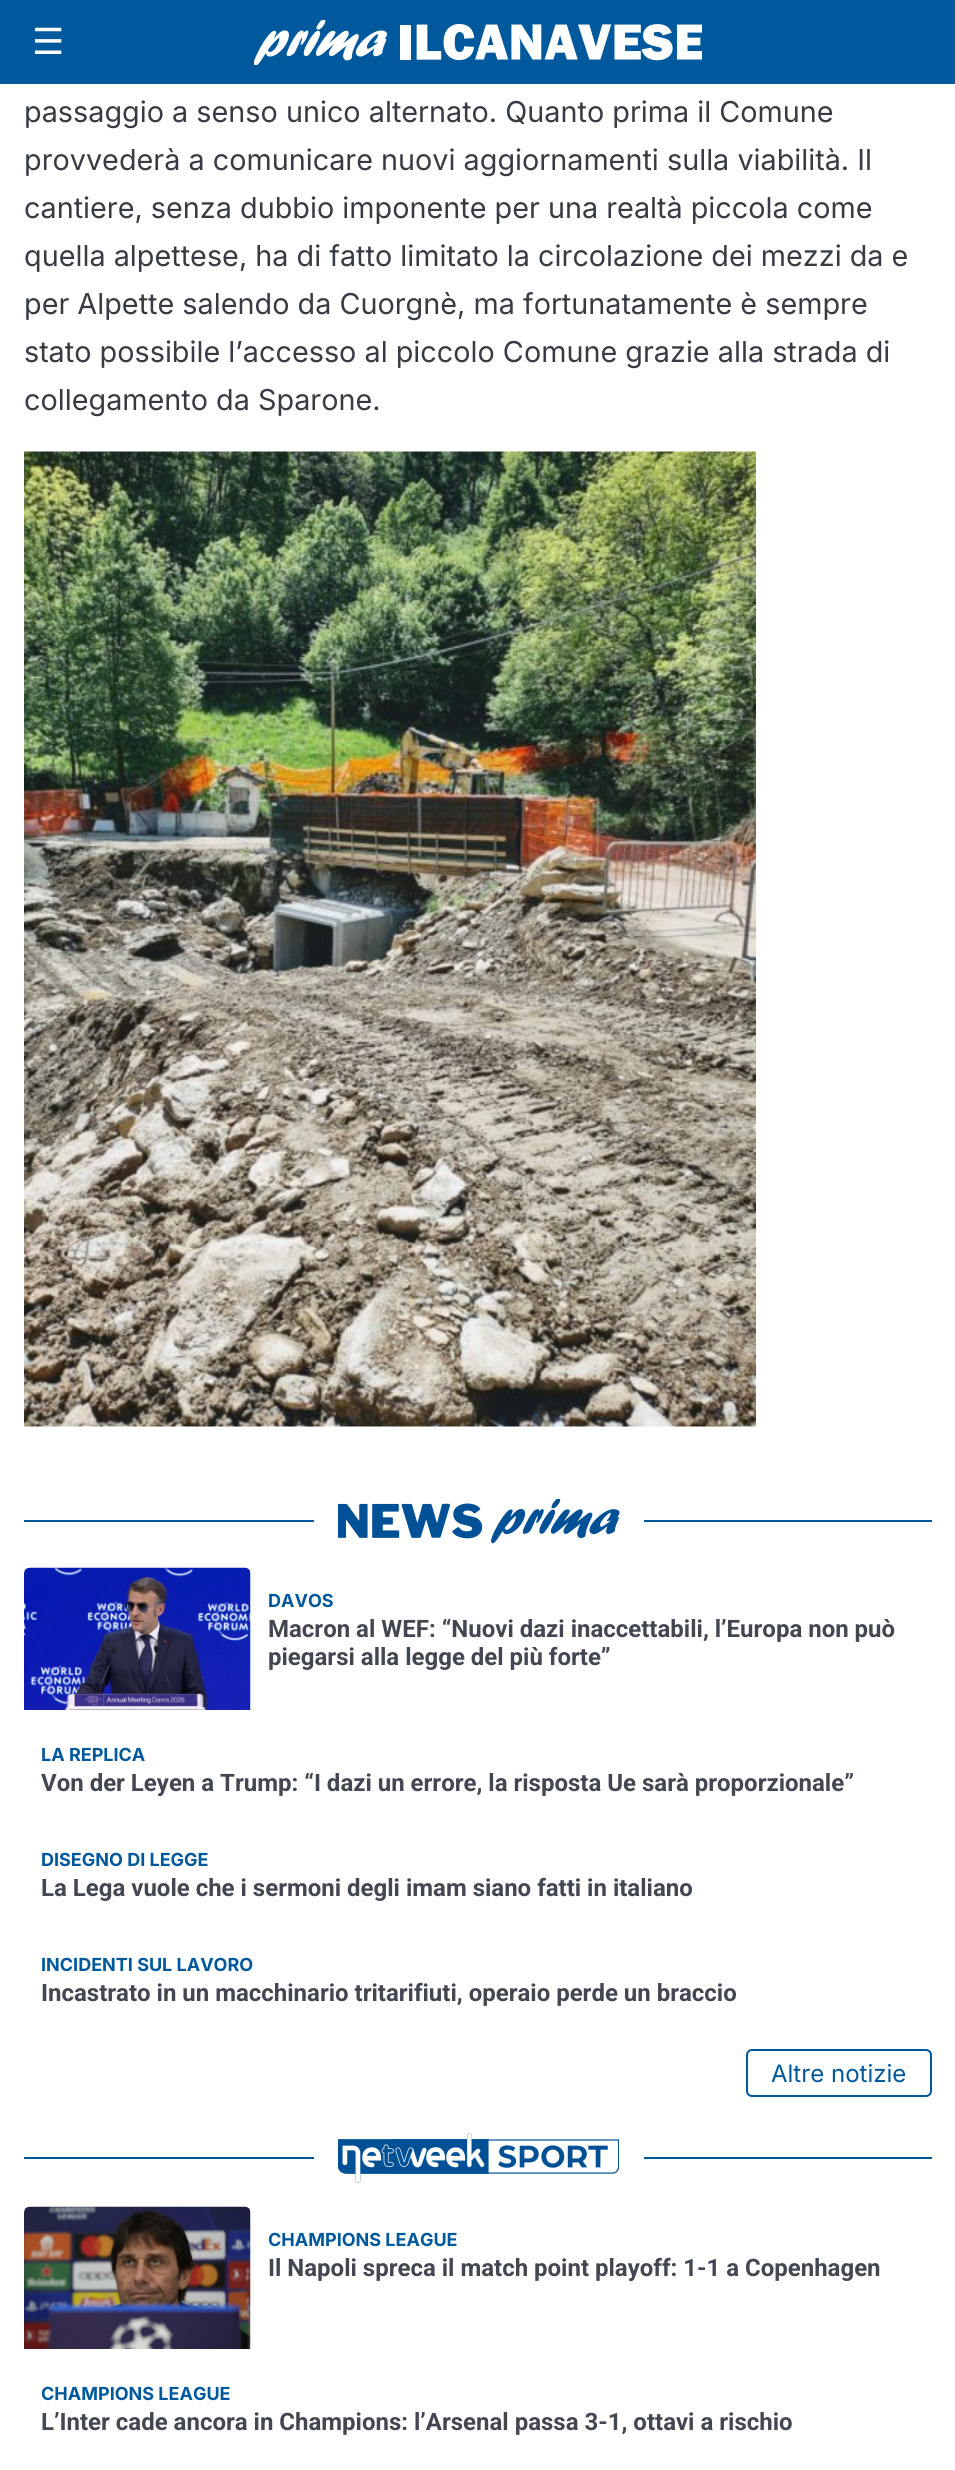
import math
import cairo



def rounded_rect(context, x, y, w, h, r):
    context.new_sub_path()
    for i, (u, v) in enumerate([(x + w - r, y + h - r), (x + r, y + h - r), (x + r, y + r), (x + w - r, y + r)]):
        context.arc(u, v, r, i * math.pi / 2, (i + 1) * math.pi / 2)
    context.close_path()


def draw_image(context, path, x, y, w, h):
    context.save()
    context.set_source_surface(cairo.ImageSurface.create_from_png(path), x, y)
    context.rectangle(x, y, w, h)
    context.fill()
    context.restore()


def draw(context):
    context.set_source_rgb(1, 1, 1)
    context.paint()
    context.set_source_rgb(0, 89 / 255, 156 / 255)
    context.rectangle(0, 0, 955, 84)
    context.fill()
    draw_image(context, "images/1.png", 254, 20, 448, 45)
    draw_image(context, "images/2.png", 24, 451, 732, 976)
    context.rectangle(24, 1520, 908, 2)
    context.fill()
    context.set_source_rgb(1, 1, 1)
    context.rectangle(314, 1520, 330, 2)
    context.fill()
    draw_image(context, "images/3.png", 338, 1499, 282, 45)
    draw_image(context, "images/4.png", 24, 1567, 227, 143)
    rounded_rect(context, 747, 2050, 184, 46, 5)
    context.set_source_rgb(0, 89 / 255, 156 / 255)
    context.stroke()
    context.rectangle(24, 2157, 908, 2)
    context.fill()
    context.set_source_rgb(1, 1, 1)
    context.rectangle(314, 2157, 330, 2)
    context.fill()
    draw_image(context, "images/5.png", 338, 2133, 281, 50)
    draw_image(context, "images/6.png", 24, 2206, 227, 143)
    context.select_font_face("DejaVu Sans")
    context.set_font_size(36)
    context.move_to(32, 54)
    context.show_text("☰")
    context.select_font_face("Inter")
    context.set_font_size(28.8)
    context.set_source_rgb(55 / 255, 60 / 255, 68 / 255)
    context.move_to(24, 122)
    context.show_text("passaggio a senso unico alternato. Quanto prima il Comune")
    context.move_to(24, 170)
    context.show_text("provvederà a comunicare nuovi aggiornamenti sulla viabilità. Il")
    context.move_to(24, 218)
    context.show_text("cantiere, senza dubbio imponente per una realtà piccola come")
    context.move_to(24, 266)
    context.show_text("quella alpettese, ha di fatto limitato la circolazione dei mezzi da e")
    context.move_to(24, 314)
    context.show_text("per Alpette salendo da Cuorgnè, ma fortunatamente è sempre")
    context.move_to(24, 362)
    context.show_text("stato possibile l’accesso al piccolo Comune grazie alla strada di")
    context.move_to(24, 410)
    context.show_text("collegamento da Sparone.")
    context.select_font_face("Inter", cairo.FontSlant.NORMAL, cairo.FontWeight.BOLD)
    context.set_font_size(18)
    context.set_source_rgb(0, 89 / 255, 156 / 255)
    context.move_to(268, 1607)
    context.show_text("DAVOS")
    context.select_font_face("Roboto", cairo.FontSlant.NORMAL, cairo.FontWeight.BOLD)
    context.set_font_size(24)
    context.set_source_rgb(66 / 255, 71 / 255, 81 / 255)
    context.move_to(268, 1637)
    context.show_text("Macron al WEF: “Nuovi dazi inaccettabili, l’Europa non può")
    context.move_to(268, 1665)
    context.show_text("piegarsi alla legge del più forte”")
    context.select_font_face("Inter", cairo.FontSlant.NORMAL, cairo.FontWeight.BOLD)
    context.set_font_size(18)
    context.set_source_rgb(0, 89 / 255, 156 / 255)
    context.move_to(41, 1761)
    context.show_text("LA REPLICA")
    context.select_font_face("Roboto", cairo.FontSlant.NORMAL, cairo.FontWeight.BOLD)
    context.set_font_size(24)
    context.set_source_rgb(66 / 255, 71 / 255, 81 / 255)
    context.move_to(41, 1791)
    context.show_text("Von der Leyen a Trump: “I dazi un errore, la risposta Ue sarà proporzionale”")
    context.select_font_face("Inter", cairo.FontSlant.NORMAL, cairo.FontWeight.BOLD)
    context.set_font_size(18)
    context.set_source_rgb(0, 89 / 255, 156 / 255)
    context.move_to(41, 1866)
    context.show_text("DISEGNO DI LEGGE")
    context.select_font_face("Roboto", cairo.FontSlant.NORMAL, cairo.FontWeight.BOLD)
    context.set_font_size(24)
    context.set_source_rgb(66 / 255, 71 / 255, 81 / 255)
    context.move_to(41, 1896)
    context.show_text("La Lega vuole che i sermoni degli imam siano fatti in italiano")
    context.select_font_face("Inter", cairo.FontSlant.NORMAL, cairo.FontWeight.BOLD)
    context.set_font_size(18)
    context.set_source_rgb(0, 89 / 255, 156 / 255)
    context.move_to(41, 1971)
    context.show_text("INCIDENTI SUL LAVORO")
    context.select_font_face("Roboto", cairo.FontSlant.NORMAL, cairo.FontWeight.BOLD)
    context.set_font_size(24)
    context.set_source_rgb(66 / 255, 71 / 255, 81 / 255)
    context.move_to(41, 2001)
    context.show_text("Incastrato in un macchinario tritarifiuti, operaio perde un braccio")
    context.select_font_face("Inter")
    context.set_source_rgb(0, 89 / 255, 156 / 255)
    context.move_to(771, 2082)
    context.show_text("Altre notizie")
    context.select_font_face("Inter", cairo.FontSlant.NORMAL, cairo.FontWeight.BOLD)
    context.set_font_size(18)
    context.move_to(268, 2246)
    context.show_text("CHAMPIONS LEAGUE")
    context.select_font_face("Roboto", cairo.FontSlant.NORMAL, cairo.FontWeight.BOLD)
    context.set_font_size(24)
    context.set_source_rgb(66 / 255, 71 / 255, 81 / 255)
    context.move_to(268, 2276)
    context.show_text("Il Napoli spreca il match point playoff: 1-1 a Copenhagen")
    context.select_font_face("Inter", cairo.FontSlant.NORMAL, cairo.FontWeight.BOLD)
    context.set_font_size(18)
    context.set_source_rgb(0, 89 / 255, 156 / 255)
    context.move_to(41, 2400)
    context.show_text("CHAMPIONS LEAGUE")
    context.select_font_face("Roboto", cairo.FontSlant.NORMAL, cairo.FontWeight.BOLD)
    context.set_font_size(24)
    context.set_source_rgb(66 / 255, 71 / 255, 81 / 255)
    context.move_to(41, 2430)
    context.show_text("L’Inter cade ancora in Champions: l’Arsenal passa 3-1, ottavi a rischio")


surface = cairo.ImageSurface(cairo.Format.RGB24, 955, 2470)
context = cairo.Context(surface)
options = cairo.FontOptions()
options.set_hint_metrics(cairo.HintMetrics.OFF)
options.set_hint_style(cairo.HintStyle.NONE)
context.set_font_options(options)
context.set_miter_limit(4)
draw(context)
surface.write_to_png("out.png")
